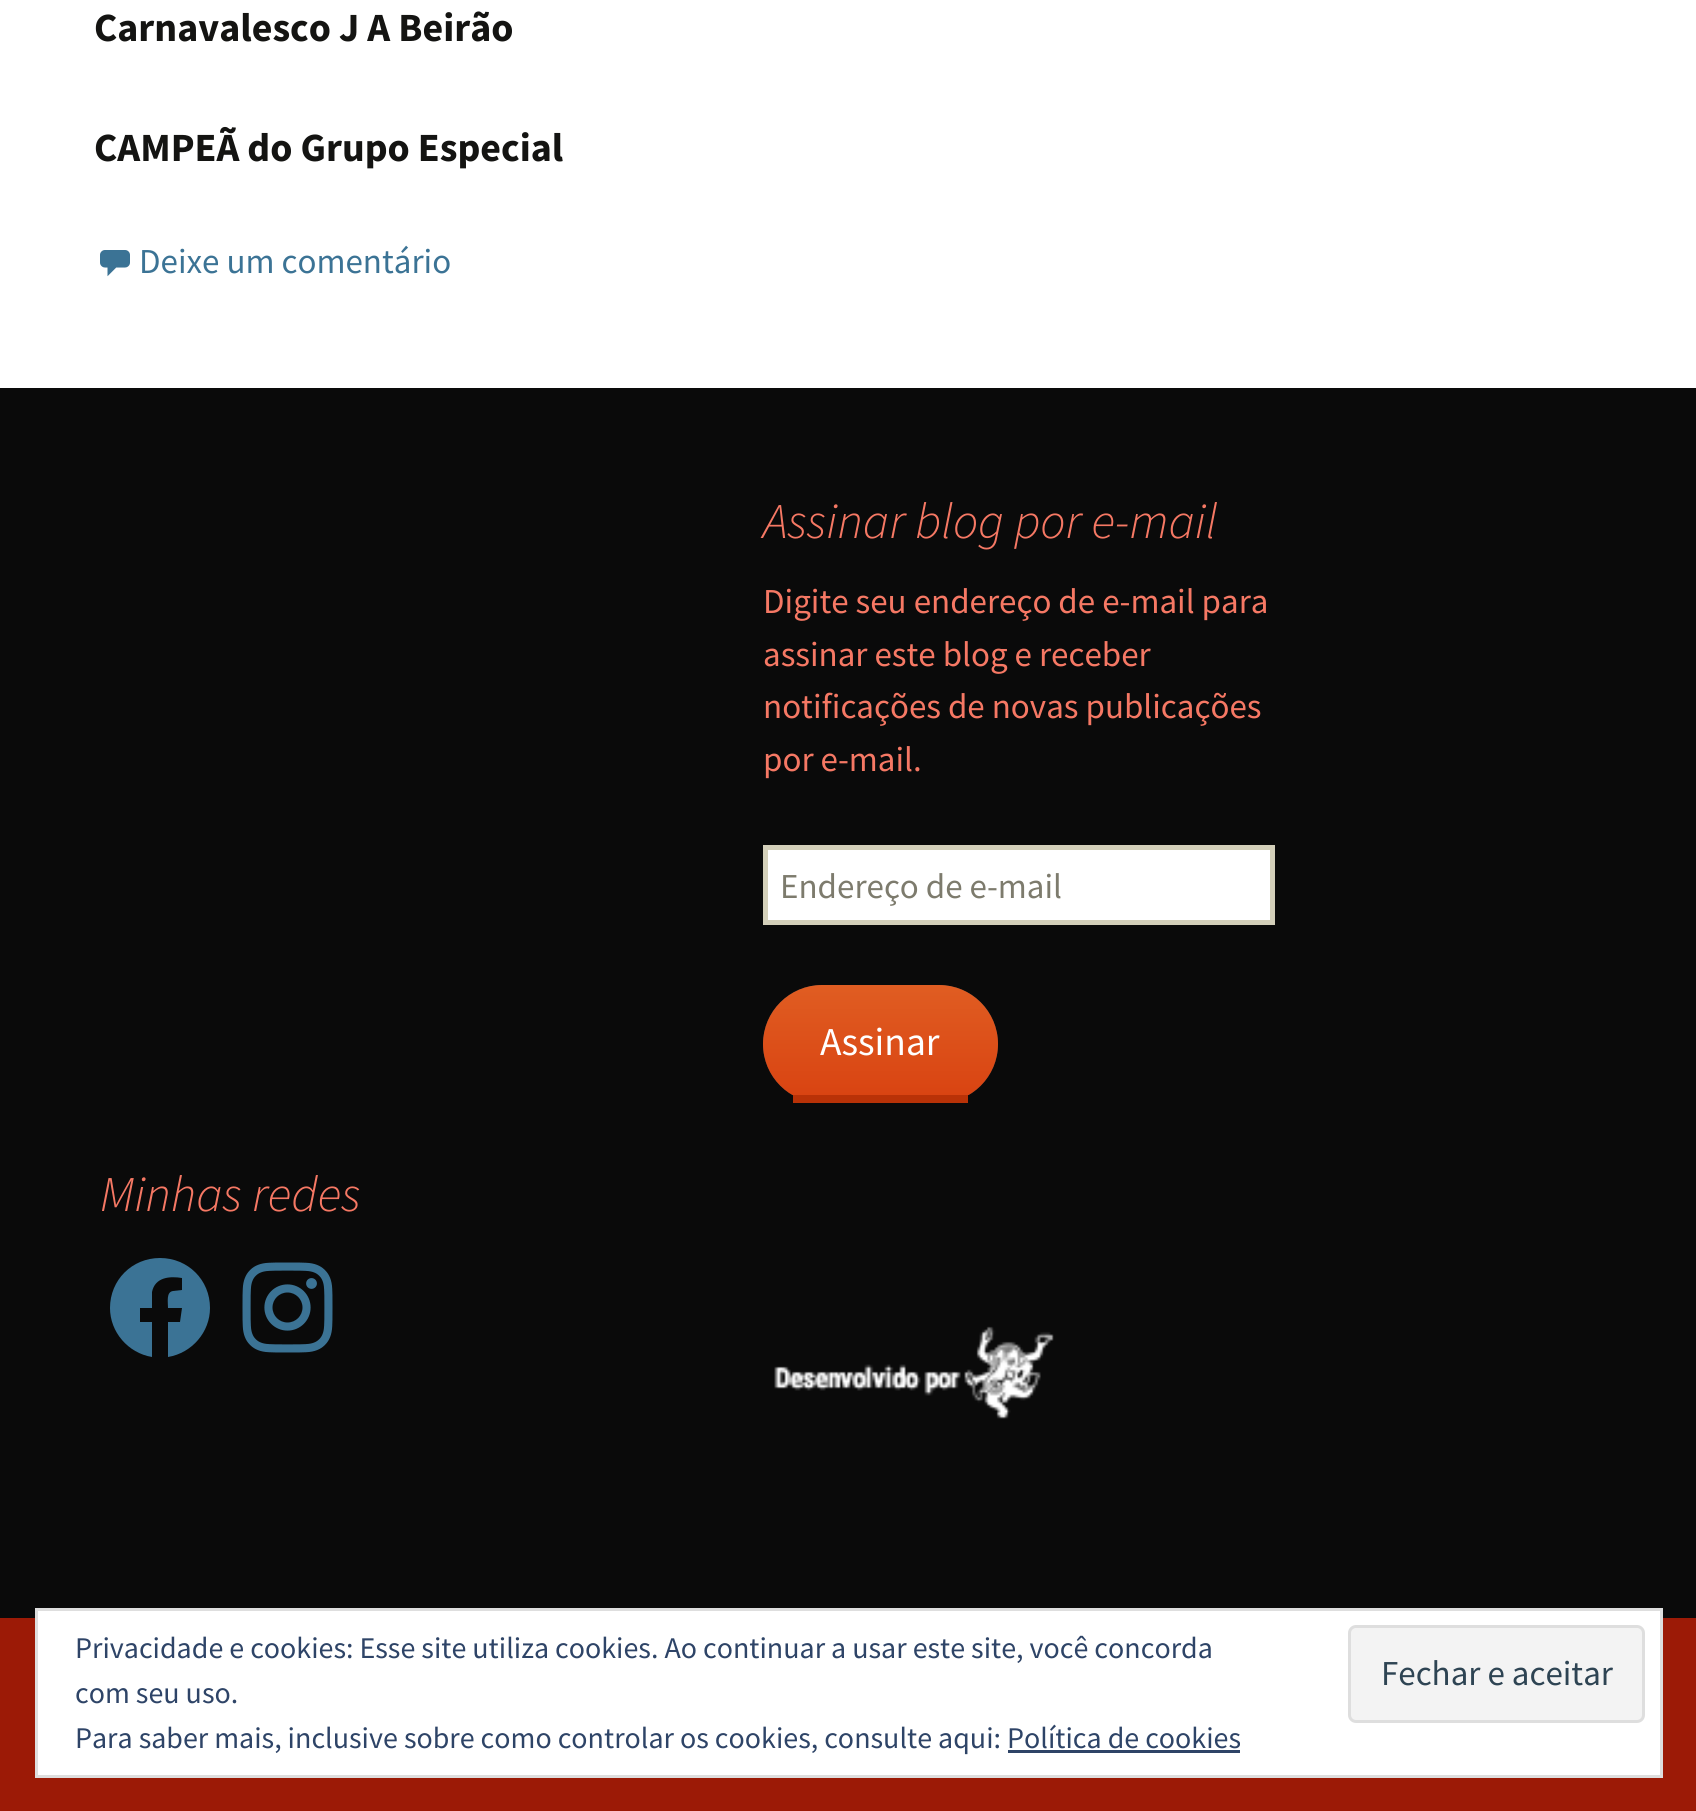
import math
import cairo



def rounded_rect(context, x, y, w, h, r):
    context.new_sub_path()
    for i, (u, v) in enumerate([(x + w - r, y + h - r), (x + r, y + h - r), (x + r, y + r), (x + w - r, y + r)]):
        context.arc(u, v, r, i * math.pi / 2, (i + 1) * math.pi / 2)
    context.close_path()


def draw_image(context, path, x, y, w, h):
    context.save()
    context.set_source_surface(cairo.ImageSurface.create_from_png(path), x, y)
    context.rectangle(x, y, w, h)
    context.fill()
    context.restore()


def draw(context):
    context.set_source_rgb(1, 1, 1)
    context.paint()
    draw_image(context, "images/1.png", 100, 250, 30, 27)
    context.set_source_rgb(156 / 255, 26 / 255, 6 / 255)
    context.rectangle(0, 1618, 1696, 193)
    context.fill()
    context.set_source_rgb(10 / 255, 10 / 255, 10 / 255)
    context.rectangle(0, 388, 1696, 1230)
    context.fill()
    context.set_source_rgb(1, 1, 1)
    context.rectangle(765.5, 847.5, 507, 75)
    context.fill_preserve()
    context.set_source_rgb(212 / 255, 208 / 255, 186 / 255)
    context.set_line_width(5)
    context.stroke()
    context.set_source_rgb(50 / 255, 55 / 255, 60 / 255)
    rounded_rect(context, 763, 985, 235, 118, 59)
    context.fill()
    context.save()
    rounded_rect(context, 763, 985, 235, 118, 59)
    context.clip()
    gradient = cairo.LinearGradient(880, 985, 880, 1095)
    gradient.add_color_stop_rgba(0, 224 / 255, 93 / 255, 34 / 255, 1)
    gradient.add_color_stop_rgba(1, 217 / 255, 68 / 255, 18 / 255, 1)
    context.set_source(gradient)
    context.new_path()
    context.move_to(822, 985)
    context.line_to(939, 985)
    context.curve_to(971.5, 985, 998, 1011.5, 998, 1044)
    context.line_to(998, 1095)
    context.line_to(763, 1095)
    context.line_to(763, 1044)
    context.curve_to(763, 1011.5, 789.5, 985, 822, 985)
    context.close_path()
    context.fill()
    context.restore()
    context.set_source_rgb(185 / 255, 50 / 255, 7 / 255)
    context.rectangle(793, 1095, 175, 8)
    context.fill()
    context.set_source_rgb(59 / 255, 115 / 255, 149 / 255)
    context.new_path()
    context.move_to(160, 1258)
    context.curve_to(132, 1258, 110, 1280, 110, 1308)
    context.curve_to(110, 1332, 128, 1353, 152, 1357)
    context.line_to(152, 1322)
    context.line_to(140, 1322)
    context.line_to(140, 1308)
    context.line_to(152, 1308)
    context.line_to(152, 1292)
    context.curve_to(155, 1277, 170, 1276, 182, 1278)
    context.line_to(182, 1290)
    context.line_to(173, 1291)
    context.curve_to(166, 1292, 168, 1302, 168, 1308)
    context.line_to(182, 1308)
    context.line_to(180, 1322)
    context.line_to(168, 1322)
    context.line_to(168, 1357)
    context.curve_to(192, 1353, 210, 1332, 210, 1308)
    context.curve_to(210, 1280, 188, 1258, 160, 1258)
    context.close_path()
    context.fill()
    draw_image(context, "images/2.png", 242, 1262, 91, 91)
    draw_image(context, "images/3.png", 774, 1326, 280, 93)
    context.set_source_rgb(1, 1, 1)
    context.rectangle(36.5, 1609.5, 1625, 167)
    context.fill_preserve()
    context.set_source_rgb(222 / 255, 222 / 255, 222 / 255)
    context.set_line_width(3)
    context.stroke()
    context.set_source_rgb(243 / 255, 243 / 255, 243 / 255)
    rounded_rect(context, 1349.5, 1626.5, 294, 95, 6.5)
    context.fill_preserve()
    context.set_source_rgb(222 / 255, 222 / 255, 222 / 255)
    context.stroke()
    context.set_source_rgb(46 / 255, 68 / 255, 103 / 255)
    context.rectangle(1008, 1750, 232, 3)
    context.fill()
    context.select_font_face("Source Sans Pro", cairo.FontSlant.NORMAL, cairo.FontWeight.BOLD)
    context.set_font_size(40)
    context.set_source_rgb(20 / 255, 20 / 255, 18 / 255)
    context.move_to(94, 41)
    context.show_text("Carnavalesco J A Beirão")
    context.move_to(94, 161)
    context.show_text("CAMPEÃ do Grupo Especial")
    context.select_font_face("Source Sans Pro")
    context.set_font_size(35)
    context.set_source_rgb(59 / 255, 115 / 255, 149 / 255)
    context.move_to(139, 273)
    context.show_text("Deixe um comentário")
    context.select_font_face("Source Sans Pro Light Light", cairo.FontSlant.ITALIC)
    context.set_font_size(50)
    context.set_source_rgb(246 / 255, 120 / 255, 100 / 255)
    context.move_to(763, 538)
    context.show_text("Assinar blog por e-mail")
    context.select_font_face("Source Sans Pro")
    context.set_font_size(35)
    context.move_to(763, 613)
    context.show_text("Digite seu endereço de e-mail para")
    context.move_to(763, 666)
    context.show_text("assinar este blog e receber")
    context.move_to(763, 718)
    context.show_text("notificações de novas publicações")
    context.move_to(763, 771)
    context.show_text("por e-mail.")
    context.set_source_rgb(125 / 255, 123 / 255, 109 / 255)
    context.move_to(780, 898)
    context.show_text("Endereço de e-mail")
    context.set_font_size(39.5)
    context.set_source_rgb(1, 1, 1)
    context.move_to(820, 1055)
    context.show_text("Assinar")
    context.select_font_face("Source Sans Pro Light Light", cairo.FontSlant.ITALIC)
    context.set_font_size(50)
    context.set_source_rgb(246 / 255, 120 / 255, 100 / 255)
    context.move_to(100, 1211)
    context.show_text("Minhas redes")
    context.select_font_face("Source Sans Pro")
    context.set_font_size(30)
    context.set_source_rgb(46 / 255, 68 / 255, 103 / 255)
    context.move_to(75, 1658)
    context.show_text("Privacidade e cookies: Esse site utiliza cookies. Ao continuar a usar este site, você concorda")
    context.set_font_size(35)
    context.set_source_rgb(46 / 255, 68 / 255, 83 / 255)
    context.move_to(1381, 1685)
    context.show_text("Fechar e aceitar")
    context.set_font_size(30)
    context.set_source_rgb(46 / 255, 68 / 255, 103 / 255)
    context.move_to(75, 1703)
    context.show_text("com seu uso.")
    context.move_to(75, 1748)
    context.show_text("Para saber mais, inclusive sobre como controlar os cookies, consulte aqui: Política de cookies")


surface = cairo.ImageSurface(cairo.Format.RGB24, 1696, 1811)
context = cairo.Context(surface)
options = cairo.FontOptions()
options.set_hint_metrics(cairo.HintMetrics.OFF)
options.set_hint_style(cairo.HintStyle.NONE)
context.set_font_options(options)
context.set_miter_limit(4)
draw(context)
surface.write_to_png("out.png")
